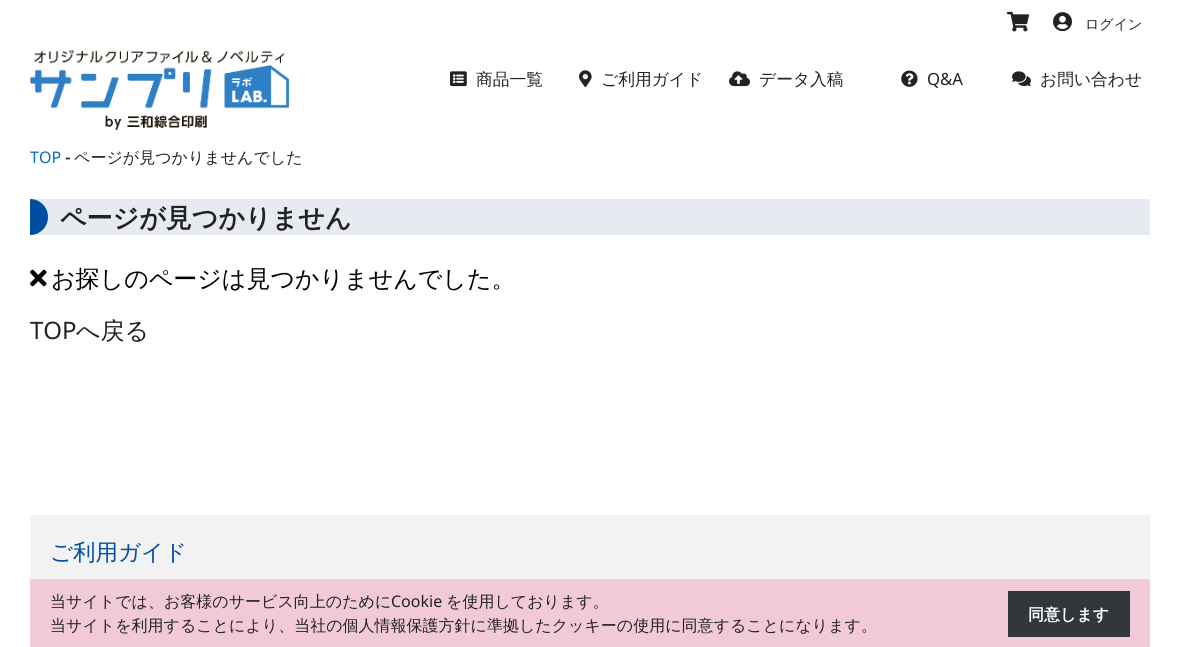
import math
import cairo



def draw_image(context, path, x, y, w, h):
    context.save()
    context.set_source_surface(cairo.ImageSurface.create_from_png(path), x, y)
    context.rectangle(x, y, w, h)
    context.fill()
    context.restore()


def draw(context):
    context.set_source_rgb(1, 1, 1)
    context.paint()
    draw_image(context, "images/1.png", 1007, 11, 22, 21)
    draw_image(context, "images/2.png", 1053, 12, 19, 20)
    draw_image(context, "images/3.png", 29, 50, 261, 80)
    draw_image(context, "images/4.png", 450, 71, 17, 16)
    draw_image(context, "images/5.png", 579, 70, 13, 18)
    draw_image(context, "images/6.png", 729, 71, 21, 16)
    draw_image(context, "images/7.png", 901, 70, 17, 17)
    draw_image(context, "images/8.png", 1012, 71, 19, 15)
    context.set_source_rgb(231 / 255, 235 / 255, 241 / 255)
    context.rectangle(30, 199, 1120, 36)
    context.fill()
    context.set_source_rgb(0, 78 / 255, 162 / 255)
    context.new_path()
    context.move_to(30, 199)
    context.curve_to(40, 199, 48, 207, 48, 217)
    context.curve_to(48, 227, 40, 235, 30, 235)
    context.close_path()
    context.fill()
    draw_image(context, "images/9.png", 30, 269, 17, 18)
    context.set_source_rgb(242 / 255, 242 / 255, 242 / 255)
    context.rectangle(30, 515, 1120, 132)
    context.fill()
    context.set_source_rgba(242 / 255, 184 / 255, 205 / 255, 0.7)
    context.rectangle(30, 579, 1120, 68)
    context.fill()
    context.set_source_rgb(50 / 255, 55 / 255, 60 / 255)
    context.rectangle(1008, 591, 122, 46)
    context.fill()
    context.select_font_face("WenQuanYi Zen Hei Medium")
    context.set_font_size(14)
    context.set_source_rgb(34 / 255, 34 / 255, 34 / 255)
    context.move_to(1085, 29)
    context.show_text("ログイン")
    context.set_font_size(16.75)
    context.move_to(476, 85)
    context.show_text("商品一覧")
    context.move_to(601, 85)
    context.show_text("ご利用ガイド")
    context.move_to(759, 85)
    context.show_text("データ入稿")
    context.select_font_face("Noto Sans")
    context.move_to(927, 85)
    context.show_text("Q&A")
    context.select_font_face("WenQuanYi Zen Hei Medium")
    context.move_to(1040, 85)
    context.show_text("お問い合わせ")
    context.select_font_face("Noto Sans")
    context.set_font_size(16)
    context.set_source_rgb(3 / 255, 110 / 255, 184 / 255)
    context.move_to(30, 163)
    context.show_text("TOP")
    context.select_font_face("Noto Sans", cairo.FontSlant.NORMAL, cairo.FontWeight.BOLD)
    context.set_source_rgb(34 / 255, 34 / 255, 34 / 255)
    context.move_to(65, 163)
    context.show_text("-")
    context.select_font_face("WenQuanYi Zen Hei Medium")
    context.move_to(74, 163)
    context.show_text("ページが見つかりませんでした")
    context.select_font_face("WenQuanYi Zen Hei", cairo.FontSlant.NORMAL, cairo.FontWeight.BOLD)
    context.set_font_size(26)
    context.move_to(60, 227)
    context.show_text("ページが見つかりません")
    context.select_font_face("WenQuanYi Zen Hei Medium")
    context.set_font_size(24)
    context.set_source_rgb(0, 0, 0)
    context.move_to(51, 287)
    context.show_text("お探しのページは見つかりませんでした。")
    context.select_font_face("Noto Sans")
    context.set_source_rgb(34 / 255, 34 / 255, 34 / 255)
    context.move_to(30, 339)
    context.show_text("TOP")
    context.select_font_face("WenQuanYi Zen Hei Medium")
    context.move_to(76, 339)
    context.show_text("へ戻る")
    context.set_font_size(22.5)
    context.set_source_rgb(0, 78 / 255, 162 / 255)
    context.move_to(50, 560)
    context.show_text("ご利用ガイド")
    context.set_font_size(16)
    context.set_source_rgb(34 / 255, 34 / 255, 34 / 255)
    context.move_to(50, 607)
    context.show_text("当サイトでは、お客様のサービス向上のために")
    context.select_font_face("Noto Sans")
    context.move_to(391, 607)
    context.show_text("Cookie")
    context.select_font_face("WenQuanYi Zen Hei Medium")
    context.move_to(446, 607)
    context.show_text("を使用しております。")
    context.move_to(50, 631)
    context.show_text("当サイトを利用することにより、当社の個人情報保護方針に準拠したクッキーの使用に同意することになります。")
    context.select_font_face("WenQuanYi Zen Hei", cairo.FontSlant.NORMAL, cairo.FontWeight.BOLD)
    context.set_source_rgb(1, 1, 1)
    context.move_to(1028, 620)
    context.show_text("同意します")


surface = cairo.ImageSurface(cairo.Format.RGB24, 1179, 647)
context = cairo.Context(surface)
options = cairo.FontOptions()
options.set_hint_metrics(cairo.HintMetrics.OFF)
options.set_hint_style(cairo.HintStyle.NONE)
context.set_font_options(options)
context.set_miter_limit(4)
draw(context)
surface.write_to_png("out.png")
